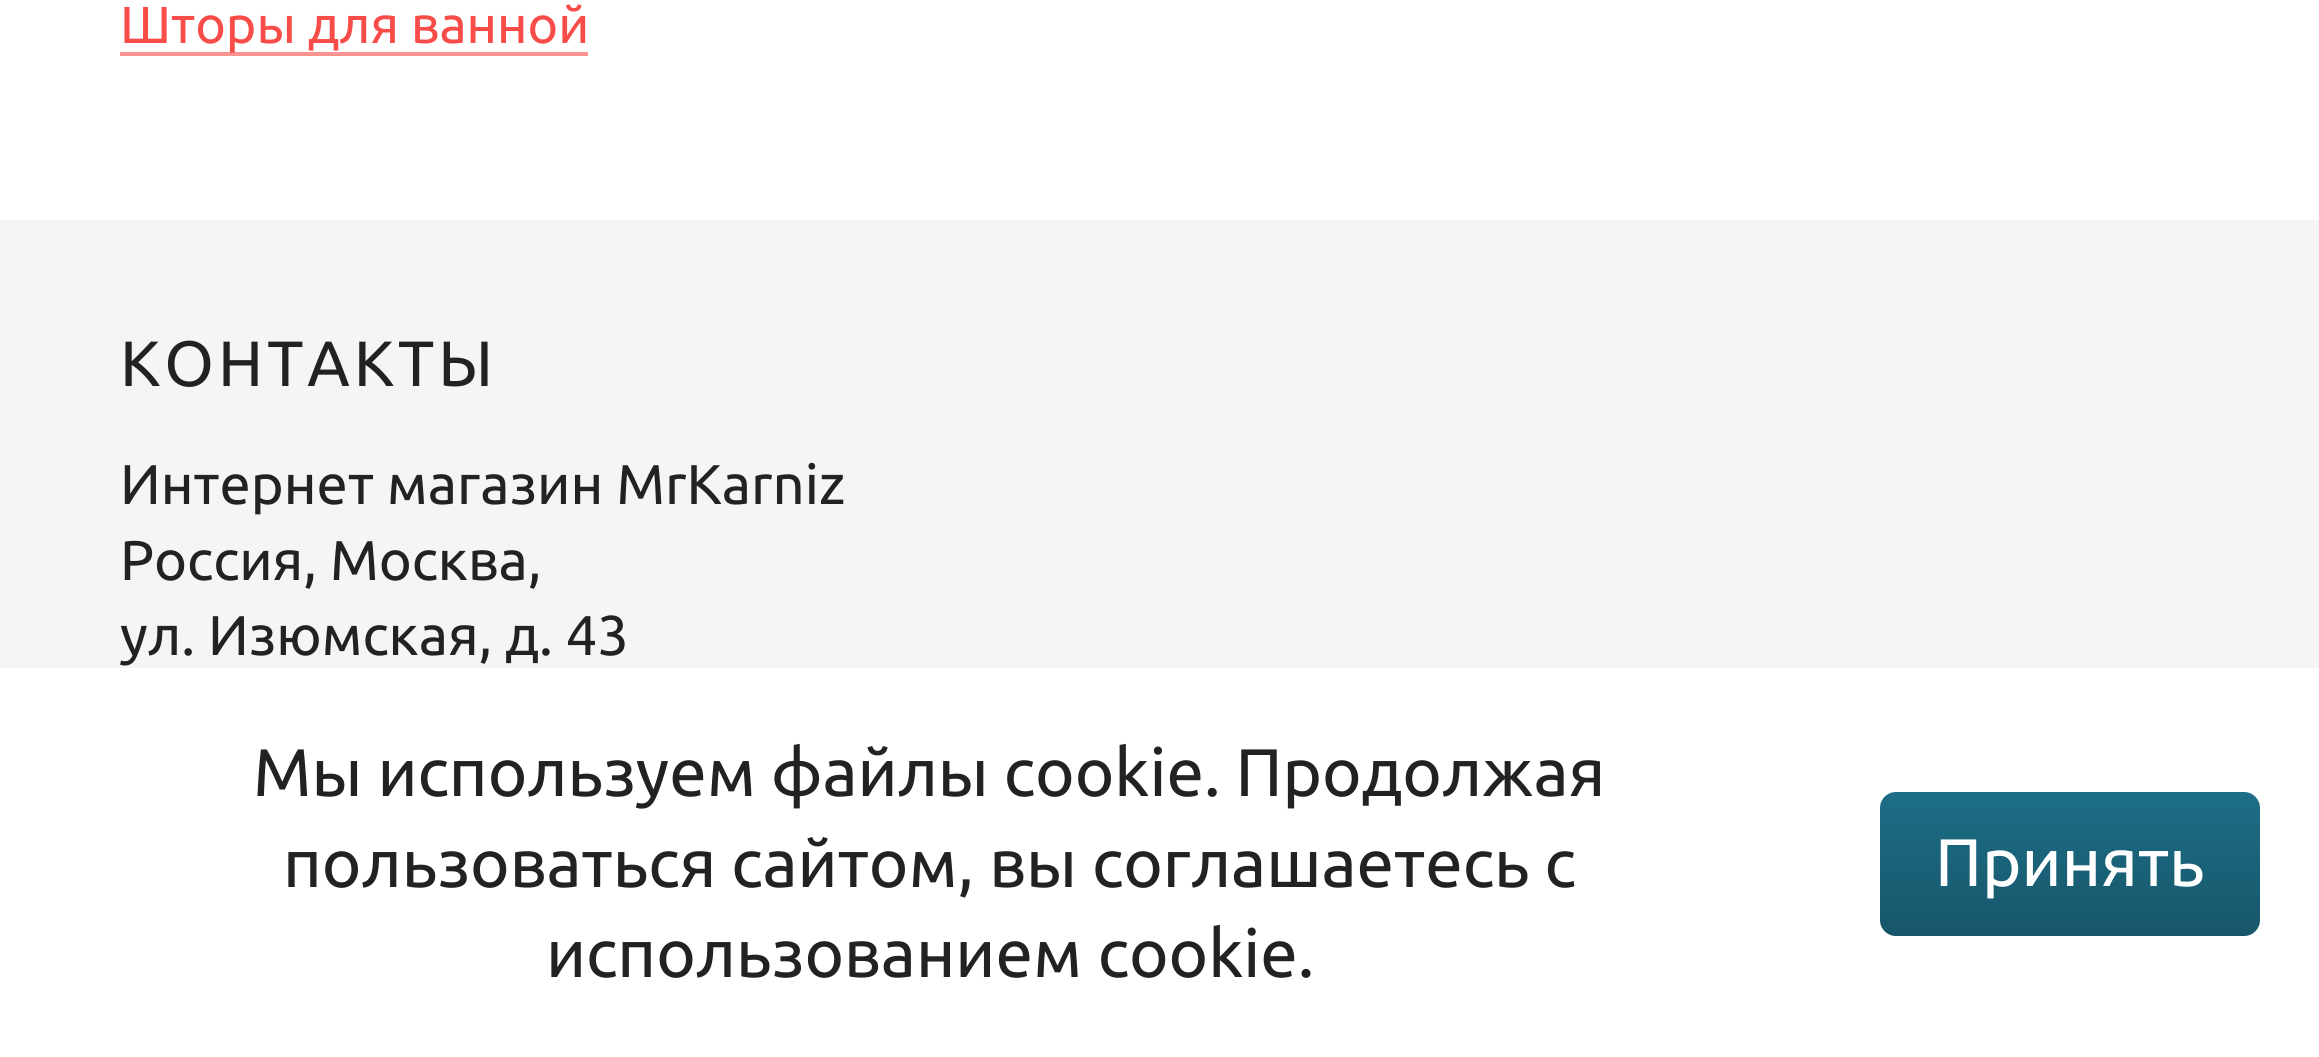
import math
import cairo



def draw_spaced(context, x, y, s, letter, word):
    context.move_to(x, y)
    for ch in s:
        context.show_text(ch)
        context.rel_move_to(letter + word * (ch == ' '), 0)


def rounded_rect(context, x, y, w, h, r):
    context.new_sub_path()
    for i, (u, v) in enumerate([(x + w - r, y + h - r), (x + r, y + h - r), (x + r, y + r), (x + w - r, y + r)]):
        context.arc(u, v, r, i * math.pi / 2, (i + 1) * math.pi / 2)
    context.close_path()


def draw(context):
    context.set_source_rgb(1, 1, 1)
    context.paint()
    context.set_source_rgb(251 / 255, 148 / 255, 145 / 255)
    context.rectangle(120, 52, 468, 4)
    context.fill()
    context.set_source_rgb(245 / 255, 245 / 255, 245 / 255)
    context.rectangle(0, 220, 2319, 448)
    context.fill()
    context.set_source_rgb(29 / 255, 110 / 255, 135 / 255)
    rounded_rect(context, 1880, 792, 380, 144, 16)
    context.fill()
    gradient = cairo.LinearGradient(2070, 792, 2070, 936)
    gradient.add_color_stop_rgba(0, 0, 0, 0, 0)
    gradient.add_color_stop_rgba(1, 0, 0, 0, 0.22)
    context.set_source(gradient)
    rounded_rect(context, 1880, 792, 380, 144, 16)
    context.fill()
    context.select_font_face("Ubuntu")
    context.set_font_size(52)
    context.set_source_rgb(248 / 255, 76 / 255, 72 / 255)
    context.move_to(120, 43)
    context.show_text("Шторы для ванной")
    context.set_font_size(64)
    context.set_source_rgb(34 / 255, 34 / 255, 34 / 255)
    draw_spaced(context, 120, 386, "КОНТАКТЫ", 4, 0)
    context.set_font_size(56)
    context.move_to(120, 504)
    context.show_text("Интернет магазин MrKarniz")
    context.move_to(120, 580)
    context.show_text("Россия, Москва,")
    context.move_to(120, 655)
    context.show_text("ул. Изюмская, д. 43")
    context.set_font_size(67.2)
    draw_spaced(context, 253, 796, "Мы используем файлы cookie. Продолжая", 0, -0.5)
    draw_spaced(context, 283, 887, "пользоваться сайтом, вы соглашаетесь с", 0, -0.5)
    context.move_to(546, 977)
    context.show_text("использованием cookie.")
    context.set_source_rgb(1, 1, 1)
    context.move_to(1935, 886)
    context.show_text("Принять")


surface = cairo.ImageSurface(cairo.Format.RGB24, 2319, 1057)
context = cairo.Context(surface)
options = cairo.FontOptions()
options.set_hint_metrics(cairo.HintMetrics.OFF)
options.set_hint_style(cairo.HintStyle.NONE)
context.set_font_options(options)
context.set_miter_limit(4)
draw(context)
surface.write_to_png("out.png")
